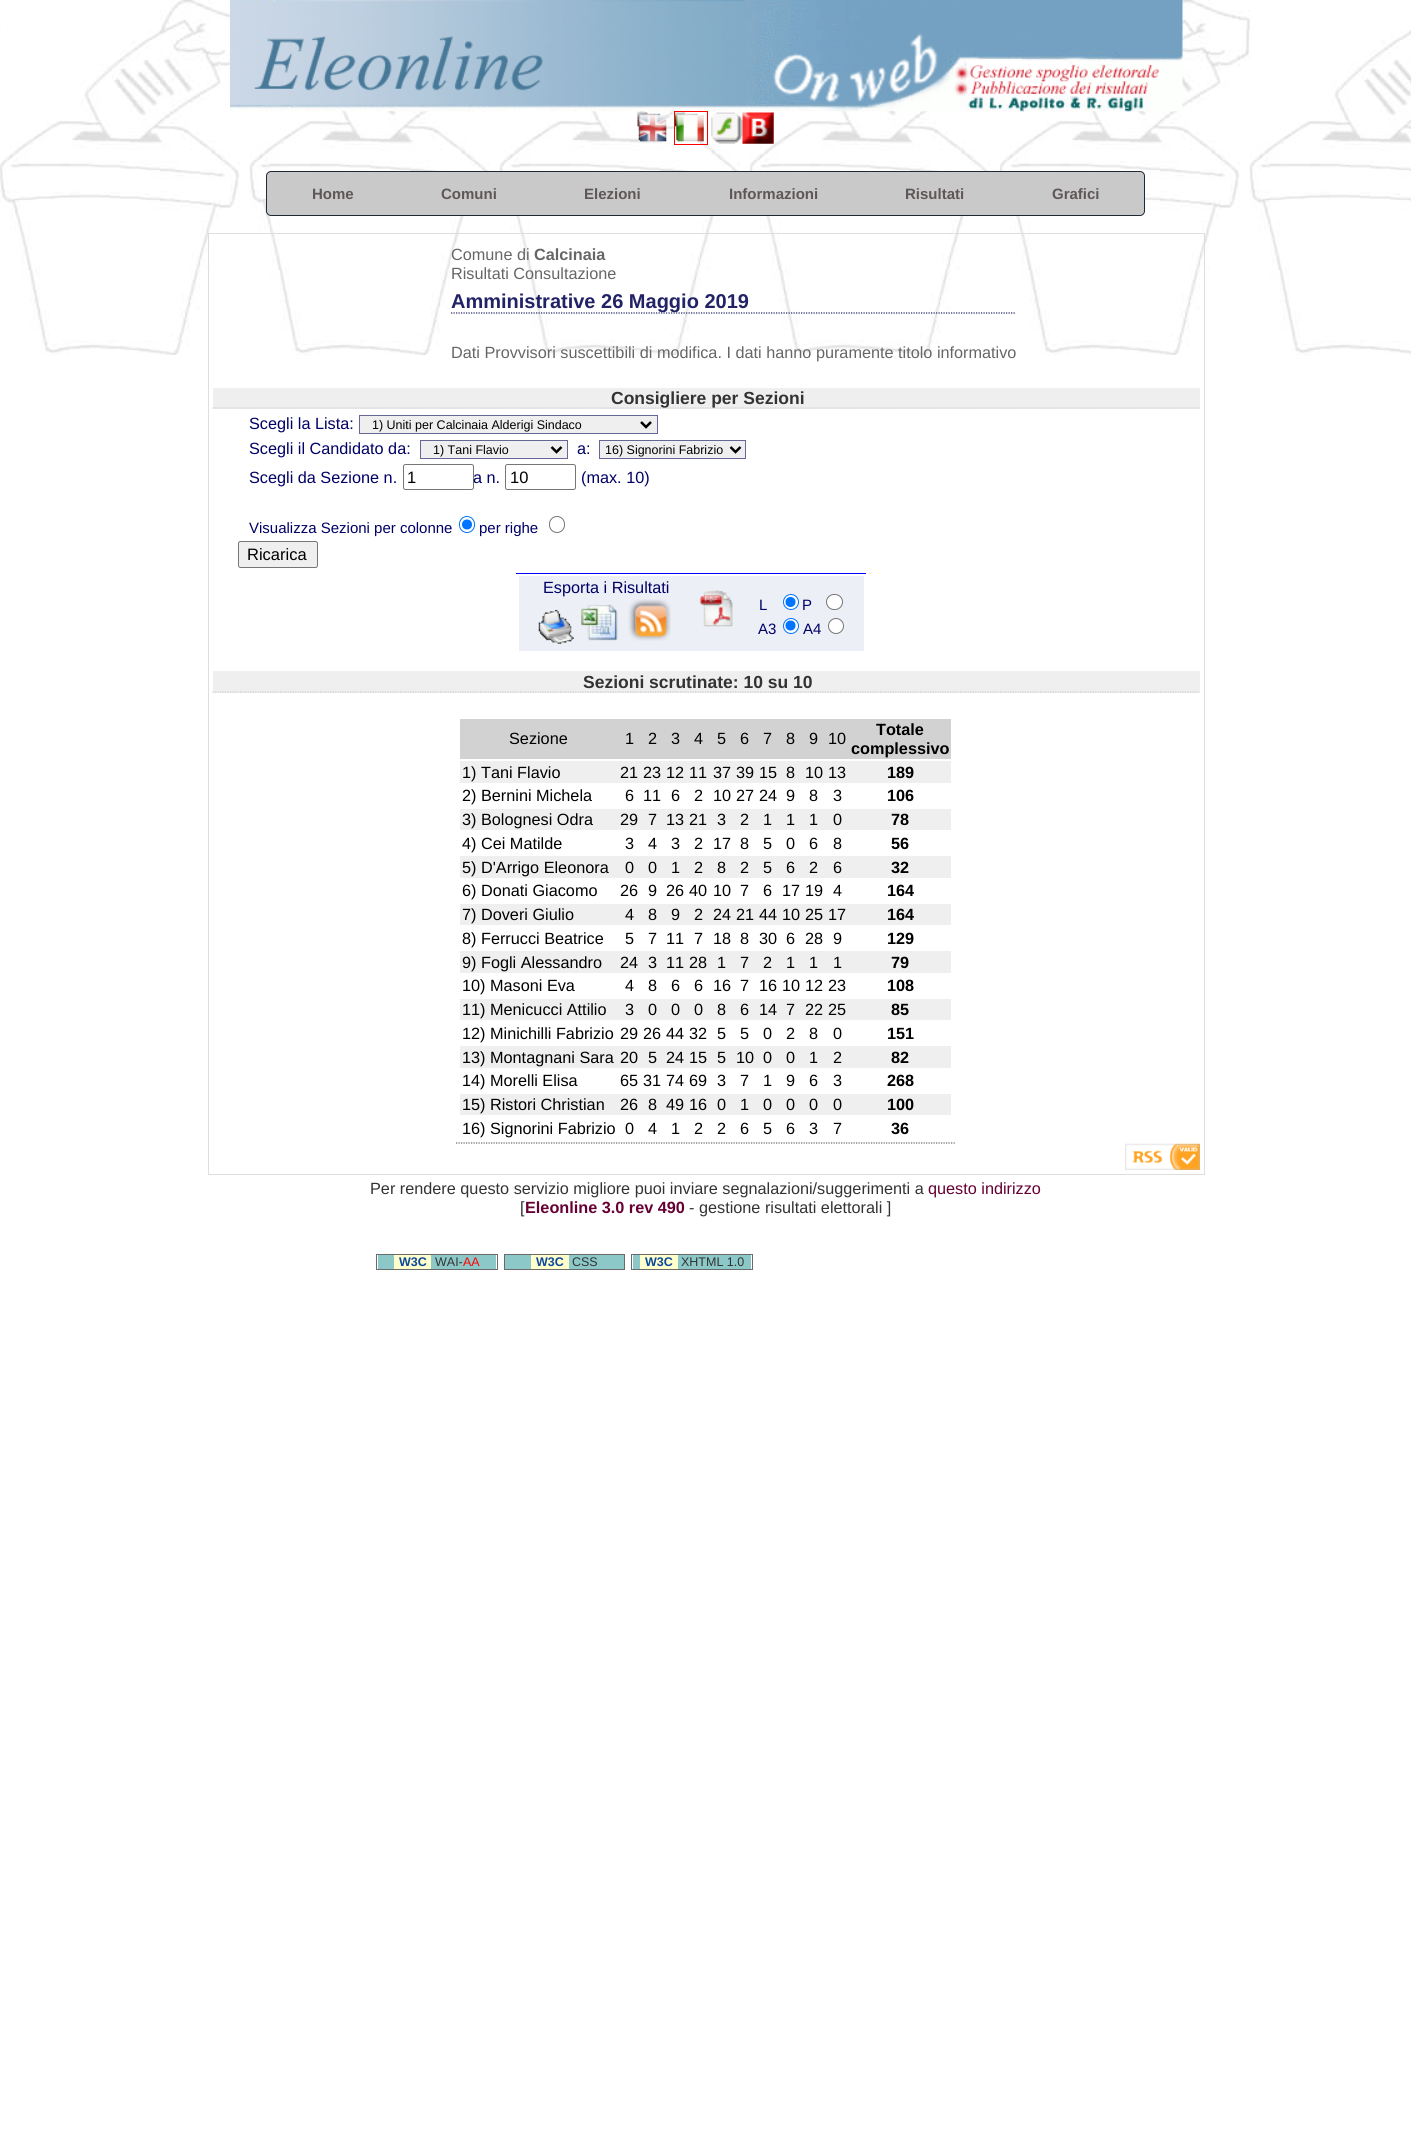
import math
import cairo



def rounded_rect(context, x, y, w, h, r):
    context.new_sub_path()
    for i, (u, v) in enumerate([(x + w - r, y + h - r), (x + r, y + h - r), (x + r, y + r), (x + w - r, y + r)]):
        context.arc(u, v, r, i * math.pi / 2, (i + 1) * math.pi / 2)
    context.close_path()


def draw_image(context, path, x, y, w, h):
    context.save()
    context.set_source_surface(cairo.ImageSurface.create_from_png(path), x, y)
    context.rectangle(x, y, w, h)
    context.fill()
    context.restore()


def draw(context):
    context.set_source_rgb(1, 1, 1)
    context.paint()
    draw_image(context, "images/1.png", 0, 0, 1411, 355)
    draw_image(context, "images/2.png", 230, 0, 953, 112)
    draw_image(context, "images/3.png", 637, 112, 30, 30)
    context.rectangle(674.5, 111.5, 33, 33)
    context.set_source_rgb(1, 0, 0)
    context.set_line_width(1)
    context.stroke()
    draw_image(context, "images/4.png", 675, 112, 29, 30)
    draw_image(context, "images/5.png", 711, 112, 32, 32)
    draw_image(context, "images/6.png", 742, 112, 32, 32)
    context.set_source_rgb(201 / 255, 201 / 255, 201 / 255)
    rounded_rect(context, 266.5, 171.5, 878, 44, 4.5)
    context.fill_preserve()
    context.set_source_rgb(30 / 255, 42 / 255, 54 / 255)
    context.stroke()
    context.rectangle(208.5, 233.5, 996, 941)
    context.set_source_rgb(222 / 255, 222 / 255, 220 / 255)
    context.stroke()
    context.new_path()
    context.move_to(451, 313)
    context.line_to(1016, 313)
    context.set_source_rgb(34 / 255, 34 / 255, 102 / 255)
    context.set_line_width(1.2)
    context.set_dash([1.25, 1.25])
    context.stroke()
    context.set_source_rgb(239 / 255, 239 / 255, 239 / 255)
    context.rectangle(213, 388, 987, 21)
    context.fill()
    context.new_path()
    context.move_to(212.5, 408)
    context.line_to(1200, 408)
    context.set_source_rgb(204 / 255, 204 / 255, 204 / 255)
    context.stroke()
    context.set_source_rgb(239 / 255, 239 / 255, 239 / 255)
    context.rectangle(359.5, 415.5, 298, 18)
    context.fill_preserve()
    context.set_source_rgb(102 / 255, 102 / 255, 153 / 255)
    context.set_line_width(1)
    context.set_dash([])
    context.stroke()
    context.new_path()
    context.move_to(641, 422)
    context.line_to(646, 427)
    context.line_to(651, 422)
    context.set_source_rgb(0, 0, 0)
    context.set_line_width(2.5)
    context.stroke()
    context.set_source_rgb(239 / 255, 239 / 255, 239 / 255)
    context.rectangle(420.5, 440.5, 147, 18)
    context.fill_preserve()
    context.set_source_rgb(102 / 255, 102 / 255, 153 / 255)
    context.set_line_width(1)
    context.stroke()
    context.new_path()
    context.move_to(551.5, 447)
    context.line_to(556.5, 452)
    context.line_to(561.5, 447)
    context.set_source_rgb(0, 0, 0)
    context.set_line_width(2.5)
    context.stroke()
    context.set_source_rgb(239 / 255, 239 / 255, 239 / 255)
    context.rectangle(599.5, 440.5, 146, 18)
    context.fill_preserve()
    context.set_source_rgb(102 / 255, 102 / 255, 153 / 255)
    context.set_line_width(1)
    context.stroke()
    context.new_path()
    context.move_to(730.5, 447)
    context.line_to(735.5, 452)
    context.line_to(740.5, 447)
    context.set_source_rgb(0, 0, 0)
    context.set_line_width(2.5)
    context.stroke()
    rounded_rect(context, 403.5, 464.5, 70, 25, 2)
    context.set_source_rgb(118 / 255, 118 / 255, 118 / 255)
    context.set_line_width(1)
    context.stroke()
    rounded_rect(context, 505.5, 464.5, 70, 25, 2)
    context.stroke()
    rounded_rect(context, 459.5, 516.5, 15, 16, 7.5)
    context.set_source_rgb(0, 117 / 255, 1)
    context.stroke()
    context.arc(467, 524.5, 5, 0, 2 * math.pi)
    context.fill()
    rounded_rect(context, 549.5, 516.5, 15, 16, 7.5)
    context.set_source_rgb(118 / 255, 118 / 255, 118 / 255)
    context.stroke()
    context.set_source_rgb(239 / 255, 239 / 255, 239 / 255)
    rounded_rect(context, 238.5, 541.5, 79, 26, 2)
    context.fill_preserve()
    context.set_source_rgb(118 / 255, 118 / 255, 118 / 255)
    context.stroke()
    context.set_source_rgb(0, 0, 1)
    context.rectangle(516, 573, 350, 1)
    context.fill()
    context.set_source_rgb(236 / 255, 239 / 255, 245 / 255)
    context.rectangle(519, 576, 345, 75)
    context.fill()
    draw_image(context, "images/7.png", 538, 609, 36, 35)
    draw_image(context, "images/8.png", 581, 604, 37, 37)
    draw_image(context, "images/9.png", 628, 599, 43, 42)
    draw_image(context, "images/10.png", 699, 590, 34, 37)
    context.set_source_rgb(1, 1, 1)
    context.arc(791, 602, 7.5, 0, 2 * math.pi)
    context.fill_preserve()
    context.set_source_rgb(0, 117 / 255, 1)
    context.stroke()
    context.arc(790.5, 602, 5, 0, 2 * math.pi)
    context.fill()
    context.set_source_rgb(1, 1, 1)
    rounded_rect(context, 826.5, 594.5, 16, 15, 7.5)
    context.fill_preserve()
    context.set_source_rgb(118 / 255, 118 / 255, 118 / 255)
    context.stroke()
    context.set_source_rgb(1, 1, 1)
    context.arc(791, 626, 7.5, 0, 2 * math.pi)
    context.fill_preserve()
    context.set_source_rgb(0, 117 / 255, 1)
    context.stroke()
    context.arc(790.5, 625.5, 5, 0, 2 * math.pi)
    context.fill()
    context.set_source_rgb(1, 1, 1)
    context.arc(836, 626, 7.5, 0, 2 * math.pi)
    context.fill_preserve()
    context.set_source_rgb(118 / 255, 118 / 255, 118 / 255)
    context.stroke()
    context.set_source_rgb(239 / 255, 239 / 255, 239 / 255)
    context.rectangle(213, 671, 987, 22)
    context.fill()
    context.new_path()
    context.move_to(212.5, 692)
    context.line_to(1200, 692)
    context.set_source_rgb(204 / 255, 204 / 255, 204 / 255)
    context.set_line_width(1.2)
    context.set_dash([1.25, 1.25])
    context.stroke()
    context.new_path()
    context.move_to(456, 1143)
    context.line_to(955, 1143)
    context.set_source_rgb(102 / 255, 102 / 255, 102 / 255)
    context.stroke()
    context.set_source_rgb(210 / 255, 210 / 255, 210 / 255)
    context.rectangle(460, 719, 491, 40)
    context.fill()
    context.set_source_rgb(239 / 255, 239 / 255, 239 / 255)
    context.rectangle(460, 761, 491, 22)
    context.fill()
    context.rectangle(460, 809, 491, 21)
    context.fill()
    context.rectangle(460, 856, 491, 22)
    context.fill()
    context.rectangle(460, 904, 491, 21)
    context.fill()
    context.rectangle(460, 951, 491, 22)
    context.fill()
    context.rectangle(460, 999, 491, 21)
    context.fill()
    context.rectangle(460, 1046, 491, 22)
    context.fill()
    context.rectangle(460, 1094, 491, 21)
    context.fill()
    draw_image(context, "images/11.png", 1125, 1143, 75, 27)
    context.rectangle(376.5, 1254.5, 121, 15)
    context.set_source_rgb(106 / 255, 106 / 255, 106 / 255)
    context.set_line_width(1)
    context.set_dash([])
    context.stroke()
    context.set_source_rgb(140 / 255, 200 / 255, 199 / 255)
    context.rectangle(378, 1255, 118, 14)
    context.fill()
    context.set_source_rgb(1, 1, 204 / 255)
    context.rectangle(394, 1255, 37, 14)
    context.fill()
    context.rectangle(504.5, 1254.5, 120, 15)
    context.set_source_rgb(106 / 255, 106 / 255, 106 / 255)
    context.stroke()
    context.set_source_rgb(140 / 255, 200 / 255, 199 / 255)
    context.rectangle(505, 1255, 119, 14)
    context.fill()
    context.set_source_rgb(1, 1, 204 / 255)
    context.rectangle(531, 1255, 38, 14)
    context.fill()
    context.rectangle(631.5, 1254.5, 121, 15)
    context.set_source_rgb(106 / 255, 106 / 255, 106 / 255)
    context.stroke()
    context.set_source_rgb(140 / 255, 200 / 255, 199 / 255)
    context.rectangle(633, 1255, 118, 14)
    context.fill()
    context.set_source_rgb(1, 1, 204 / 255)
    context.rectangle(640, 1255, 38, 14)
    context.fill()
    context.select_font_face("Liberation Sans", cairo.FontSlant.NORMAL, cairo.FontWeight.BOLD)
    context.set_font_size(15)
    context.set_source_rgb(95 / 255, 87 / 255, 87 / 255)
    context.move_to(312, 199)
    context.show_text("Home")
    context.move_to(441, 199)
    context.show_text("Comuni")
    context.move_to(584, 199)
    context.show_text("Elezioni")
    context.move_to(729, 199)
    context.show_text("Informazioni")
    context.move_to(905, 199)
    context.show_text("Risultati")
    context.move_to(1052, 199)
    context.show_text("Grafici")
    context.select_font_face("Liberation Sans")
    context.set_font_size(16.25)
    context.set_source_rgb(102 / 255, 102 / 255, 102 / 255)
    context.move_to(451, 260)
    context.show_text("Comune di")
    context.select_font_face("Liberation Sans", cairo.FontSlant.NORMAL, cairo.FontWeight.BOLD)
    context.move_to(534, 260)
    context.show_text("Calcinaia")
    context.select_font_face("Liberation Sans")
    context.move_to(451, 279)
    context.show_text("Risultati Consultazione")
    context.select_font_face("Liberation Sans", cairo.FontSlant.NORMAL, cairo.FontWeight.BOLD)
    context.set_font_size(20)
    context.set_source_rgb(34 / 255, 34 / 255, 102 / 255)
    context.move_to(451, 308)
    context.show_text("Amministrative 26 Maggio 2019")
    context.select_font_face("Liberation Sans")
    context.set_font_size(16.25)
    context.set_source_rgb(102 / 255, 102 / 255, 102 / 255)
    context.move_to(451, 358)
    context.show_text("Dati Provvisori suscettibili di modifica. I dati hanno puramente titolo informativo")
    context.select_font_face("Liberation Sans", cairo.FontSlant.NORMAL, cairo.FontWeight.BOLD)
    context.set_font_size(17.5)
    context.set_source_rgb(51 / 255, 51 / 255, 51 / 255)
    context.move_to(611, 404)
    context.show_text("Consigliere per Sezioni")
    context.select_font_face("Liberation Sans")
    context.set_font_size(16.25)
    context.set_source_rgb(0, 0, 102 / 255)
    context.move_to(249, 429)
    context.show_text("Scegli la Lista:")
    context.set_font_size(12.5)
    context.set_source_rgb(0, 0, 0)
    context.move_to(372, 429)
    context.show_text("1) Uniti per Calcinaia Alderigi Sindaco")
    context.set_font_size(16.25)
    context.set_source_rgb(0, 0, 102 / 255)
    context.move_to(249, 454)
    context.show_text("Scegli il Candidato da:")
    context.set_font_size(12.5)
    context.set_source_rgb(0, 0, 0)
    context.move_to(433, 454)
    context.show_text("1) Tani Flavio")
    context.set_font_size(16.25)
    context.set_source_rgb(0, 0, 102 / 255)
    context.move_to(577, 454)
    context.show_text("a:")
    context.set_font_size(12.5)
    context.set_source_rgb(0, 0, 0)
    context.move_to(605, 454)
    context.show_text("16) Signorini Fabrizio")
    context.set_font_size(16.25)
    context.set_source_rgb(0, 0, 102 / 255)
    context.move_to(249, 483)
    context.show_text("Scegli da Sezione n.")
    context.set_font_size(16.5)
    context.set_source_rgb(0, 0, 0)
    context.move_to(407, 483)
    context.show_text("1")
    context.set_font_size(16.25)
    context.set_source_rgb(0, 0, 102 / 255)
    context.move_to(473, 483)
    context.show_text("a n.")
    context.set_font_size(16.5)
    context.set_source_rgb(0, 0, 0)
    context.move_to(510, 483)
    context.show_text("10")
    context.set_font_size(16.25)
    context.set_source_rgb(0, 0, 102 / 255)
    context.move_to(581, 483)
    context.show_text("(max. 10)")
    context.set_font_size(15)
    context.move_to(249, 533)
    context.show_text("Visualizza Sezioni per colonne")
    context.move_to(479, 533)
    context.show_text("per righe")
    context.set_font_size(16.5)
    context.set_source_rgb(0, 0, 0)
    context.move_to(247, 560)
    context.show_text("Ricarica")
    context.set_font_size(16.25)
    context.set_source_rgb(0, 0, 102 / 255)
    context.move_to(543, 593)
    context.show_text("Esporta i Risultati")
    context.set_font_size(15)
    context.move_to(759, 610)
    context.show_text("L")
    context.move_to(802, 610)
    context.show_text("P")
    context.move_to(758, 634)
    context.show_text("A3")
    context.move_to(803, 634)
    context.show_text("A4")
    context.select_font_face("Liberation Sans", cairo.FontSlant.NORMAL, cairo.FontWeight.BOLD)
    context.set_font_size(17.5)
    context.set_source_rgb(51 / 255, 51 / 255, 51 / 255)
    context.move_to(583, 688)
    context.show_text("Sezioni scrutinate: 10 su 10")
    context.select_font_face("Liberation Sans")
    context.set_font_size(16.25)
    context.set_source_rgb(0, 0, 0)
    context.move_to(509, 744)
    context.show_text("Sezione")
    context.move_to(625, 744)
    context.show_text("1")
    context.move_to(648, 744)
    context.show_text("2")
    context.move_to(671, 744)
    context.show_text("3")
    context.move_to(694, 744)
    context.show_text("4")
    context.move_to(717, 744)
    context.show_text("5")
    context.move_to(740, 744)
    context.show_text("6")
    context.move_to(763, 744)
    context.show_text("7")
    context.move_to(786, 744)
    context.show_text("8")
    context.move_to(809, 744)
    context.show_text("9")
    context.move_to(828, 744)
    context.show_text("10")
    context.select_font_face("Liberation Sans", cairo.FontSlant.NORMAL, cairo.FontWeight.BOLD)
    context.move_to(876, 735)
    context.show_text("Totale")
    context.move_to(851, 754)
    context.show_text("complessivo")
    context.select_font_face("Liberation Sans")
    context.move_to(462, 778)
    context.show_text("1) Tani Flavio")
    context.move_to(620, 778)
    context.show_text("21")
    context.move_to(643, 778)
    context.show_text("23")
    context.move_to(666, 778)
    context.show_text("12")
    context.move_to(689, 778)
    context.show_text("11")
    context.move_to(713, 778)
    context.show_text("37")
    context.move_to(736, 778)
    context.show_text("39")
    context.move_to(759, 778)
    context.show_text("15")
    context.move_to(786, 778)
    context.show_text("8")
    context.move_to(805, 778)
    context.show_text("10")
    context.move_to(828, 778)
    context.show_text("13")
    context.select_font_face("Liberation Sans", cairo.FontSlant.NORMAL, cairo.FontWeight.BOLD)
    context.move_to(887, 778)
    context.show_text("189")
    context.select_font_face("Liberation Sans")
    context.move_to(462, 801)
    context.show_text("2) Bernini Michela")
    context.move_to(625, 801)
    context.show_text("6")
    context.move_to(643, 801)
    context.show_text("11")
    context.move_to(671, 801)
    context.show_text("6")
    context.move_to(694, 801)
    context.show_text("2")
    context.move_to(713, 801)
    context.show_text("10")
    context.move_to(736, 801)
    context.show_text("27")
    context.move_to(759, 801)
    context.show_text("24")
    context.move_to(786, 801)
    context.show_text("9")
    context.move_to(809, 801)
    context.show_text("8")
    context.move_to(833, 801)
    context.show_text("3")
    context.select_font_face("Liberation Sans", cairo.FontSlant.NORMAL, cairo.FontWeight.BOLD)
    context.move_to(887, 801)
    context.show_text("106")
    context.select_font_face("Liberation Sans")
    context.move_to(462, 825)
    context.show_text("3) Bolognesi Odra")
    context.move_to(620, 825)
    context.show_text("29")
    context.move_to(648, 825)
    context.show_text("7")
    context.move_to(666, 825)
    context.show_text("13")
    context.move_to(689, 825)
    context.show_text("21")
    context.move_to(717, 825)
    context.show_text("3")
    context.move_to(740, 825)
    context.show_text("2")
    context.move_to(763, 825)
    context.show_text("1")
    context.move_to(786, 825)
    context.show_text("1")
    context.move_to(809, 825)
    context.show_text("1")
    context.move_to(833, 825)
    context.show_text("0")
    context.select_font_face("Liberation Sans", cairo.FontSlant.NORMAL, cairo.FontWeight.BOLD)
    context.move_to(891, 825)
    context.show_text("78")
    context.select_font_face("Liberation Sans")
    context.move_to(462, 849)
    context.show_text("4) Cei Matilde")
    context.move_to(625, 849)
    context.show_text("3")
    context.move_to(648, 849)
    context.show_text("4")
    context.move_to(671, 849)
    context.show_text("3")
    context.move_to(694, 849)
    context.show_text("2")
    context.move_to(713, 849)
    context.show_text("17")
    context.move_to(740, 849)
    context.show_text("8")
    context.move_to(763, 849)
    context.show_text("5")
    context.move_to(786, 849)
    context.show_text("0")
    context.move_to(809, 849)
    context.show_text("6")
    context.move_to(833, 849)
    context.show_text("8")
    context.select_font_face("Liberation Sans", cairo.FontSlant.NORMAL, cairo.FontWeight.BOLD)
    context.move_to(891, 849)
    context.show_text("56")
    context.select_font_face("Liberation Sans")
    context.move_to(462, 873)
    context.show_text("5) D'Arrigo Eleonora")
    context.move_to(625, 873)
    context.show_text("0")
    context.move_to(648, 873)
    context.show_text("0")
    context.move_to(671, 873)
    context.show_text("1")
    context.move_to(694, 873)
    context.show_text("2")
    context.move_to(717, 873)
    context.show_text("8")
    context.move_to(740, 873)
    context.show_text("2")
    context.move_to(763, 873)
    context.show_text("5")
    context.move_to(786, 873)
    context.show_text("6")
    context.move_to(809, 873)
    context.show_text("2")
    context.move_to(833, 873)
    context.show_text("6")
    context.select_font_face("Liberation Sans", cairo.FontSlant.NORMAL, cairo.FontWeight.BOLD)
    context.move_to(891, 873)
    context.show_text("32")
    context.select_font_face("Liberation Sans")
    context.move_to(462, 896)
    context.show_text("6) Donati Giacomo")
    context.move_to(620, 896)
    context.show_text("26")
    context.move_to(648, 896)
    context.show_text("9")
    context.move_to(666, 896)
    context.show_text("26")
    context.move_to(689, 896)
    context.show_text("40")
    context.move_to(713, 896)
    context.show_text("10")
    context.move_to(740, 896)
    context.show_text("7")
    context.move_to(763, 896)
    context.show_text("6")
    context.move_to(782, 896)
    context.show_text("17")
    context.move_to(805, 896)
    context.show_text("19")
    context.move_to(833, 896)
    context.show_text("4")
    context.select_font_face("Liberation Sans", cairo.FontSlant.NORMAL, cairo.FontWeight.BOLD)
    context.move_to(887, 896)
    context.show_text("164")
    context.select_font_face("Liberation Sans")
    context.move_to(462, 920)
    context.show_text("7) Doveri Giulio")
    context.move_to(625, 920)
    context.show_text("4")
    context.move_to(648, 920)
    context.show_text("8")
    context.move_to(671, 920)
    context.show_text("9")
    context.move_to(694, 920)
    context.show_text("2")
    context.move_to(713, 920)
    context.show_text("24")
    context.move_to(736, 920)
    context.show_text("21")
    context.move_to(759, 920)
    context.show_text("44")
    context.move_to(782, 920)
    context.show_text("10")
    context.move_to(805, 920)
    context.show_text("25")
    context.move_to(828, 920)
    context.show_text("17")
    context.select_font_face("Liberation Sans", cairo.FontSlant.NORMAL, cairo.FontWeight.BOLD)
    context.move_to(887, 920)
    context.show_text("164")
    context.select_font_face("Liberation Sans")
    context.move_to(462, 944)
    context.show_text("8) Ferrucci Beatrice")
    context.move_to(625, 944)
    context.show_text("5")
    context.move_to(648, 944)
    context.show_text("7")
    context.move_to(666, 944)
    context.show_text("11")
    context.move_to(694, 944)
    context.show_text("7")
    context.move_to(713, 944)
    context.show_text("18")
    context.move_to(740, 944)
    context.show_text("8")
    context.move_to(759, 944)
    context.show_text("30")
    context.move_to(786, 944)
    context.show_text("6")
    context.move_to(805, 944)
    context.show_text("28")
    context.move_to(833, 944)
    context.show_text("9")
    context.select_font_face("Liberation Sans", cairo.FontSlant.NORMAL, cairo.FontWeight.BOLD)
    context.move_to(887, 944)
    context.show_text("129")
    context.select_font_face("Liberation Sans")
    context.move_to(462, 968)
    context.show_text("9) Fogli Alessandro")
    context.move_to(620, 968)
    context.show_text("24")
    context.move_to(648, 968)
    context.show_text("3")
    context.move_to(666, 968)
    context.show_text("11")
    context.move_to(689, 968)
    context.show_text("28")
    context.move_to(717, 968)
    context.show_text("1")
    context.move_to(740, 968)
    context.show_text("7")
    context.move_to(763, 968)
    context.show_text("2")
    context.move_to(786, 968)
    context.show_text("1")
    context.move_to(809, 968)
    context.show_text("1")
    context.move_to(833, 968)
    context.show_text("1")
    context.select_font_face("Liberation Sans", cairo.FontSlant.NORMAL, cairo.FontWeight.BOLD)
    context.move_to(891, 968)
    context.show_text("79")
    context.select_font_face("Liberation Sans")
    context.move_to(462, 991)
    context.show_text("10) Masoni Eva")
    context.move_to(625, 991)
    context.show_text("4")
    context.move_to(648, 991)
    context.show_text("8")
    context.move_to(671, 991)
    context.show_text("6")
    context.move_to(694, 991)
    context.show_text("6")
    context.move_to(713, 991)
    context.show_text("16")
    context.move_to(740, 991)
    context.show_text("7")
    context.move_to(759, 991)
    context.show_text("16")
    context.move_to(782, 991)
    context.show_text("10")
    context.move_to(805, 991)
    context.show_text("12")
    context.move_to(828, 991)
    context.show_text("23")
    context.select_font_face("Liberation Sans", cairo.FontSlant.NORMAL, cairo.FontWeight.BOLD)
    context.move_to(887, 991)
    context.show_text("108")
    context.select_font_face("Liberation Sans")
    context.move_to(462, 1015)
    context.show_text("11) Menicucci Attilio")
    context.move_to(625, 1015)
    context.show_text("3")
    context.move_to(648, 1015)
    context.show_text("0")
    context.move_to(671, 1015)
    context.show_text("0")
    context.move_to(694, 1015)
    context.show_text("0")
    context.move_to(717, 1015)
    context.show_text("8")
    context.move_to(740, 1015)
    context.show_text("6")
    context.move_to(759, 1015)
    context.show_text("14")
    context.move_to(786, 1015)
    context.show_text("7")
    context.move_to(805, 1015)
    context.show_text("22")
    context.move_to(828, 1015)
    context.show_text("25")
    context.select_font_face("Liberation Sans", cairo.FontSlant.NORMAL, cairo.FontWeight.BOLD)
    context.move_to(891, 1015)
    context.show_text("85")
    context.select_font_face("Liberation Sans")
    context.move_to(462, 1039)
    context.show_text("12) Minichilli Fabrizio")
    context.move_to(620, 1039)
    context.show_text("29")
    context.move_to(643, 1039)
    context.show_text("26")
    context.move_to(666, 1039)
    context.show_text("44")
    context.move_to(689, 1039)
    context.show_text("32")
    context.move_to(717, 1039)
    context.show_text("5")
    context.move_to(740, 1039)
    context.show_text("5")
    context.move_to(763, 1039)
    context.show_text("0")
    context.move_to(786, 1039)
    context.show_text("2")
    context.move_to(809, 1039)
    context.show_text("8")
    context.move_to(833, 1039)
    context.show_text("0")
    context.select_font_face("Liberation Sans", cairo.FontSlant.NORMAL, cairo.FontWeight.BOLD)
    context.move_to(887, 1039)
    context.show_text("151")
    context.select_font_face("Liberation Sans")
    context.move_to(462, 1063)
    context.show_text("13) Montagnani Sara")
    context.move_to(620, 1063)
    context.show_text("20")
    context.move_to(648, 1063)
    context.show_text("5")
    context.move_to(666, 1063)
    context.show_text("24")
    context.move_to(689, 1063)
    context.show_text("15")
    context.move_to(717, 1063)
    context.show_text("5")
    context.move_to(736, 1063)
    context.show_text("10")
    context.move_to(763, 1063)
    context.show_text("0")
    context.move_to(786, 1063)
    context.show_text("0")
    context.move_to(809, 1063)
    context.show_text("1")
    context.move_to(833, 1063)
    context.show_text("2")
    context.select_font_face("Liberation Sans", cairo.FontSlant.NORMAL, cairo.FontWeight.BOLD)
    context.move_to(891, 1063)
    context.show_text("82")
    context.select_font_face("Liberation Sans")
    context.move_to(462, 1086)
    context.show_text("14) Morelli Elisa")
    context.move_to(620, 1086)
    context.show_text("65")
    context.move_to(643, 1086)
    context.show_text("31")
    context.move_to(666, 1086)
    context.show_text("74")
    context.move_to(689, 1086)
    context.show_text("69")
    context.move_to(717, 1086)
    context.show_text("3")
    context.move_to(740, 1086)
    context.show_text("7")
    context.move_to(763, 1086)
    context.show_text("1")
    context.move_to(786, 1086)
    context.show_text("9")
    context.move_to(809, 1086)
    context.show_text("6")
    context.move_to(833, 1086)
    context.show_text("3")
    context.select_font_face("Liberation Sans", cairo.FontSlant.NORMAL, cairo.FontWeight.BOLD)
    context.move_to(887, 1086)
    context.show_text("268")
    context.select_font_face("Liberation Sans")
    context.move_to(462, 1110)
    context.show_text("15) Ristori Christian")
    context.move_to(620, 1110)
    context.show_text("26")
    context.move_to(648, 1110)
    context.show_text("8")
    context.move_to(666, 1110)
    context.show_text("49")
    context.move_to(689, 1110)
    context.show_text("16")
    context.move_to(717, 1110)
    context.show_text("0")
    context.move_to(740, 1110)
    context.show_text("1")
    context.move_to(763, 1110)
    context.show_text("0")
    context.move_to(786, 1110)
    context.show_text("0")
    context.move_to(809, 1110)
    context.show_text("0")
    context.move_to(833, 1110)
    context.show_text("0")
    context.select_font_face("Liberation Sans", cairo.FontSlant.NORMAL, cairo.FontWeight.BOLD)
    context.move_to(887, 1110)
    context.show_text("100")
    context.select_font_face("Liberation Sans")
    context.move_to(462, 1134)
    context.show_text("16) Signorini Fabrizio")
    context.move_to(625, 1134)
    context.show_text("0")
    context.move_to(648, 1134)
    context.show_text("4")
    context.move_to(671, 1134)
    context.show_text("1")
    context.move_to(694, 1134)
    context.show_text("2")
    context.move_to(717, 1134)
    context.show_text("2")
    context.move_to(740, 1134)
    context.show_text("6")
    context.move_to(763, 1134)
    context.show_text("5")
    context.move_to(786, 1134)
    context.show_text("6")
    context.move_to(809, 1134)
    context.show_text("3")
    context.move_to(833, 1134)
    context.show_text("7")
    context.select_font_face("Liberation Sans", cairo.FontSlant.NORMAL, cairo.FontWeight.BOLD)
    context.move_to(891, 1134)
    context.show_text("36")
    context.select_font_face("Liberation Sans")
    context.set_source_rgb(51 / 255, 51 / 255, 51 / 255)
    context.move_to(370, 1194)
    context.show_text("Per rendere questo servizio migliore puoi inviare segnalazioni/suggerimenti a")
    context.set_source_rgb(102 / 255, 0, 51 / 255)
    context.move_to(928, 1194)
    context.show_text("questo indirizzo")
    context.set_source_rgb(51 / 255, 51 / 255, 51 / 255)
    context.move_to(520, 1213)
    context.show_text("[")
    context.select_font_face("Liberation Sans", cairo.FontSlant.NORMAL, cairo.FontWeight.BOLD)
    context.set_source_rgb(102 / 255, 0, 51 / 255)
    context.move_to(525, 1213)
    context.show_text("Eleonline 3.0 rev 490")
    context.select_font_face("Liberation Sans")
    context.set_source_rgb(51 / 255, 51 / 255, 51 / 255)
    context.move_to(689, 1213)
    context.show_text("- gestione risultati elettorali ]")
    context.select_font_face("Liberation Sans", cairo.FontSlant.NORMAL, cairo.FontWeight.BOLD)
    context.set_font_size(12.5)
    context.set_source_rgb(12 / 255, 71 / 255, 157 / 255)
    context.move_to(399, 1266)
    context.show_text("W3C")
    context.select_font_face("Liberation Sans")
    context.set_source_rgb(51 / 255, 51 / 255, 51 / 255)
    context.move_to(435, 1266)
    context.show_text("WAI-")
    context.set_source_rgb(1, 0, 0)
    context.move_to(463, 1266)
    context.show_text("AA")
    context.select_font_face("Liberation Sans", cairo.FontSlant.NORMAL, cairo.FontWeight.BOLD)
    context.set_source_rgb(12 / 255, 71 / 255, 157 / 255)
    context.move_to(536, 1266)
    context.show_text("W3C")
    context.select_font_face("Liberation Sans")
    context.set_source_rgb(51 / 255, 51 / 255, 51 / 255)
    context.move_to(572, 1266)
    context.show_text("CSS")
    context.select_font_face("Liberation Sans", cairo.FontSlant.NORMAL, cairo.FontWeight.BOLD)
    context.set_source_rgb(12 / 255, 71 / 255, 157 / 255)
    context.move_to(645, 1266)
    context.show_text("W3C")
    context.select_font_face("Liberation Sans")
    context.set_source_rgb(51 / 255, 51 / 255, 51 / 255)
    context.move_to(681, 1266)
    context.show_text("XHTML 1.0")


surface = cairo.ImageSurface(cairo.Format.RGB24, 1411, 2139)
context = cairo.Context(surface)
options = cairo.FontOptions()
options.set_hint_metrics(cairo.HintMetrics.OFF)
options.set_hint_style(cairo.HintStyle.NONE)
context.set_font_options(options)
context.set_miter_limit(4)
draw(context)
surface.write_to_png("out.png")
